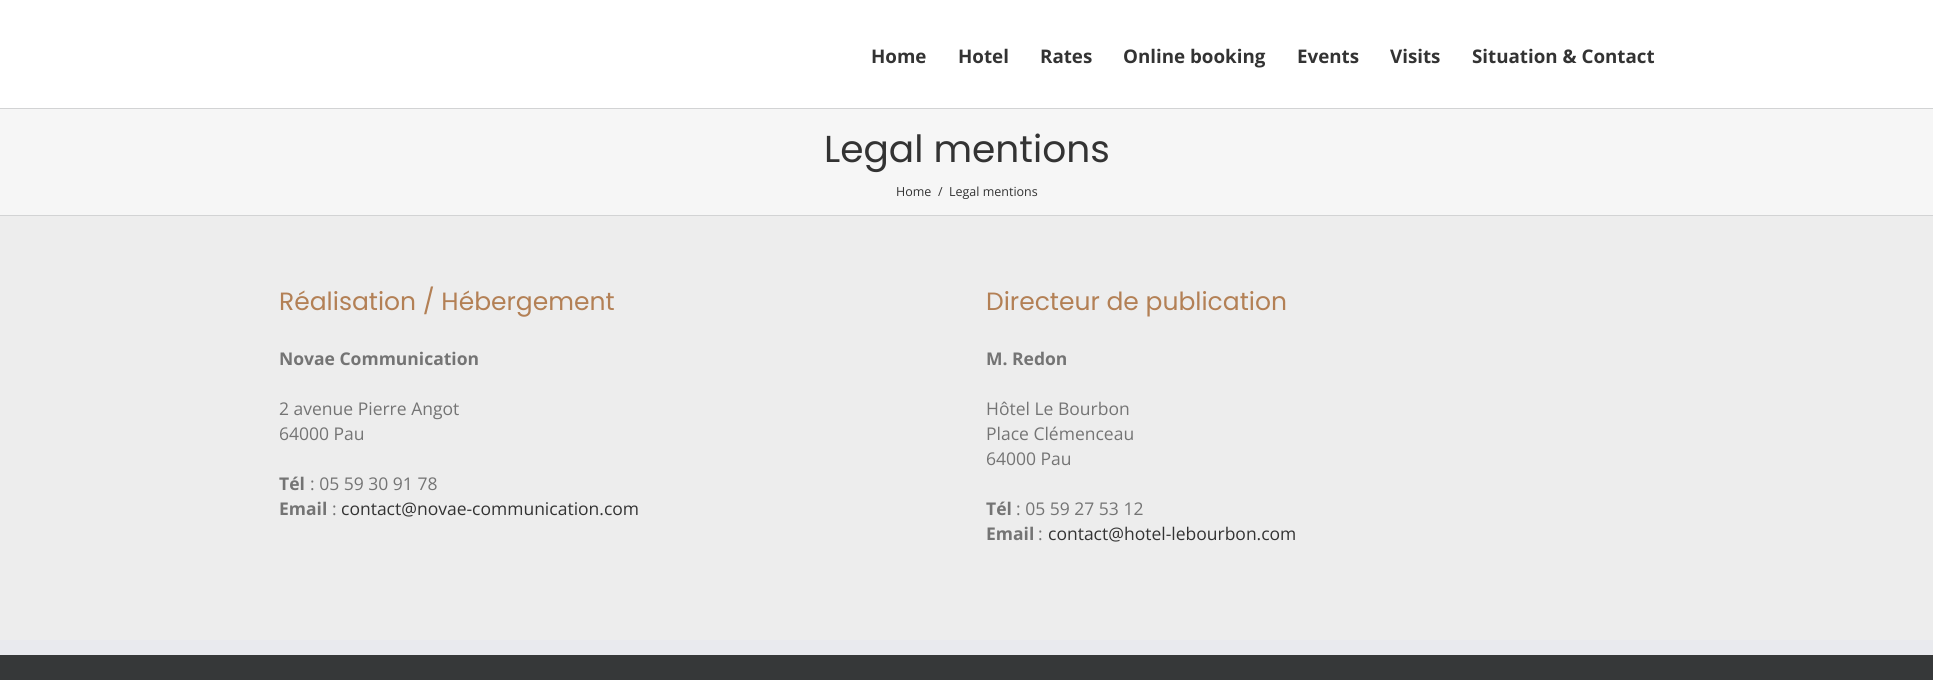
import math
import cairo



def draw(context):
    context.set_source_rgb(237 / 255, 237 / 255, 237 / 255)
    context.paint()
    context.set_source_rgb(1, 1, 1)
    context.rectangle(0, 0, 1933, 108)
    context.fill()
    context.set_source_rgb(246 / 255, 246 / 255, 246 / 255)
    context.rectangle(0, 109, 1933, 106)
    context.fill()
    context.set_source_rgb(210 / 255, 211 / 255, 212 / 255)
    context.rectangle(0, 108, 1933, 1)
    context.fill()
    context.rectangle(0, 215, 1933, 1)
    context.fill()
    context.set_source_rgb(54 / 255, 56 / 255, 57 / 255)
    context.rectangle(0, 655, 1933, 25)
    context.fill()
    context.set_source_rgb(233 / 255, 234 / 255, 238 / 255)
    context.rectangle(0, 640, 1933, 15)
    context.fill()
    context.select_font_face("Open Sans", cairo.FontSlant.NORMAL, cairo.FontWeight.BOLD)
    context.set_font_size(18.75)
    context.set_source_rgb(51 / 255, 51 / 255, 51 / 255)
    context.move_to(871, 63)
    context.show_text("Home")
    context.move_to(958, 63)
    context.show_text("Hotel")
    context.move_to(1040, 63)
    context.show_text("Rates")
    context.move_to(1123, 63)
    context.show_text("Online booking")
    context.move_to(1297, 63)
    context.show_text("Events")
    context.move_to(1390, 63)
    context.show_text("Visits")
    context.move_to(1472, 63)
    context.show_text("Situation & Contact")
    context.select_font_face("Poppins")
    context.set_font_size(37.5)
    context.move_to(824, 162)
    context.show_text("Legal mentions")
    context.select_font_face("Open Sans")
    context.set_font_size(12.5)
    context.move_to(896, 196)
    context.show_text("Home")
    context.move_to(938, 196)
    context.show_text("/")
    context.move_to(949, 196)
    context.show_text("Legal mentions")
    context.select_font_face("Poppins")
    context.set_font_size(25)
    context.set_source_rgb(179 / 255, 128 / 255, 85 / 255)
    context.move_to(279, 310)
    context.show_text("Réalisation / Hébergement")
    context.select_font_face("Open Sans", cairo.FontSlant.NORMAL, cairo.FontWeight.BOLD)
    context.set_font_size(17.5)
    context.set_source_rgb(116 / 255, 116 / 255, 116 / 255)
    context.move_to(279, 365)
    context.show_text("Novae Communication")
    context.select_font_face("Open Sans")
    context.move_to(279, 415)
    context.show_text("2 avenue Pierre Angot")
    context.move_to(279, 440)
    context.show_text("64000 Pau")
    context.select_font_face("Open Sans", cairo.FontSlant.NORMAL, cairo.FontWeight.BOLD)
    context.move_to(279, 490)
    context.show_text("Tél")
    context.select_font_face("Open Sans")
    context.move_to(310, 490)
    context.show_text(": 05 59 30 91 78")
    context.select_font_face("Open Sans", cairo.FontSlant.NORMAL, cairo.FontWeight.BOLD)
    context.move_to(279, 515)
    context.show_text("Email")
    context.select_font_face("Open Sans")
    context.move_to(332, 515)
    context.show_text(":")
    context.set_source_rgb(51 / 255, 51 / 255, 51 / 255)
    context.move_to(341, 515)
    context.show_text("contact@novae-communication.com")
    context.select_font_face("Poppins")
    context.set_font_size(25)
    context.set_source_rgb(179 / 255, 128 / 255, 85 / 255)
    context.move_to(986, 310)
    context.show_text("Directeur de publication")
    context.select_font_face("Open Sans", cairo.FontSlant.NORMAL, cairo.FontWeight.BOLD)
    context.set_font_size(17.5)
    context.set_source_rgb(116 / 255, 116 / 255, 116 / 255)
    context.move_to(986, 365)
    context.show_text("M. Redon")
    context.select_font_face("Open Sans")
    context.move_to(986, 415)
    context.show_text("Hôtel Le Bourbon")
    context.move_to(986, 440)
    context.show_text("Place Clémenceau")
    context.move_to(986, 465)
    context.show_text("64000 Pau")
    context.select_font_face("Open Sans", cairo.FontSlant.NORMAL, cairo.FontWeight.BOLD)
    context.move_to(986, 515)
    context.show_text("Tél")
    context.select_font_face("Open Sans")
    context.move_to(1016, 515)
    context.show_text(": 05 59 27 53 12")
    context.select_font_face("Open Sans", cairo.FontSlant.NORMAL, cairo.FontWeight.BOLD)
    context.move_to(986, 540)
    context.show_text("Email")
    context.select_font_face("Open Sans")
    context.move_to(1038, 540)
    context.show_text(":")
    context.set_source_rgb(51 / 255, 51 / 255, 51 / 255)
    context.move_to(1048, 540)
    context.show_text("contact@hotel-lebourbon.com")


surface = cairo.ImageSurface(cairo.Format.RGB24, 1933, 680)
context = cairo.Context(surface)
options = cairo.FontOptions()
options.set_hint_metrics(cairo.HintMetrics.OFF)
options.set_hint_style(cairo.HintStyle.NONE)
context.set_font_options(options)
context.set_miter_limit(4)
draw(context)
surface.write_to_png("out.png")
